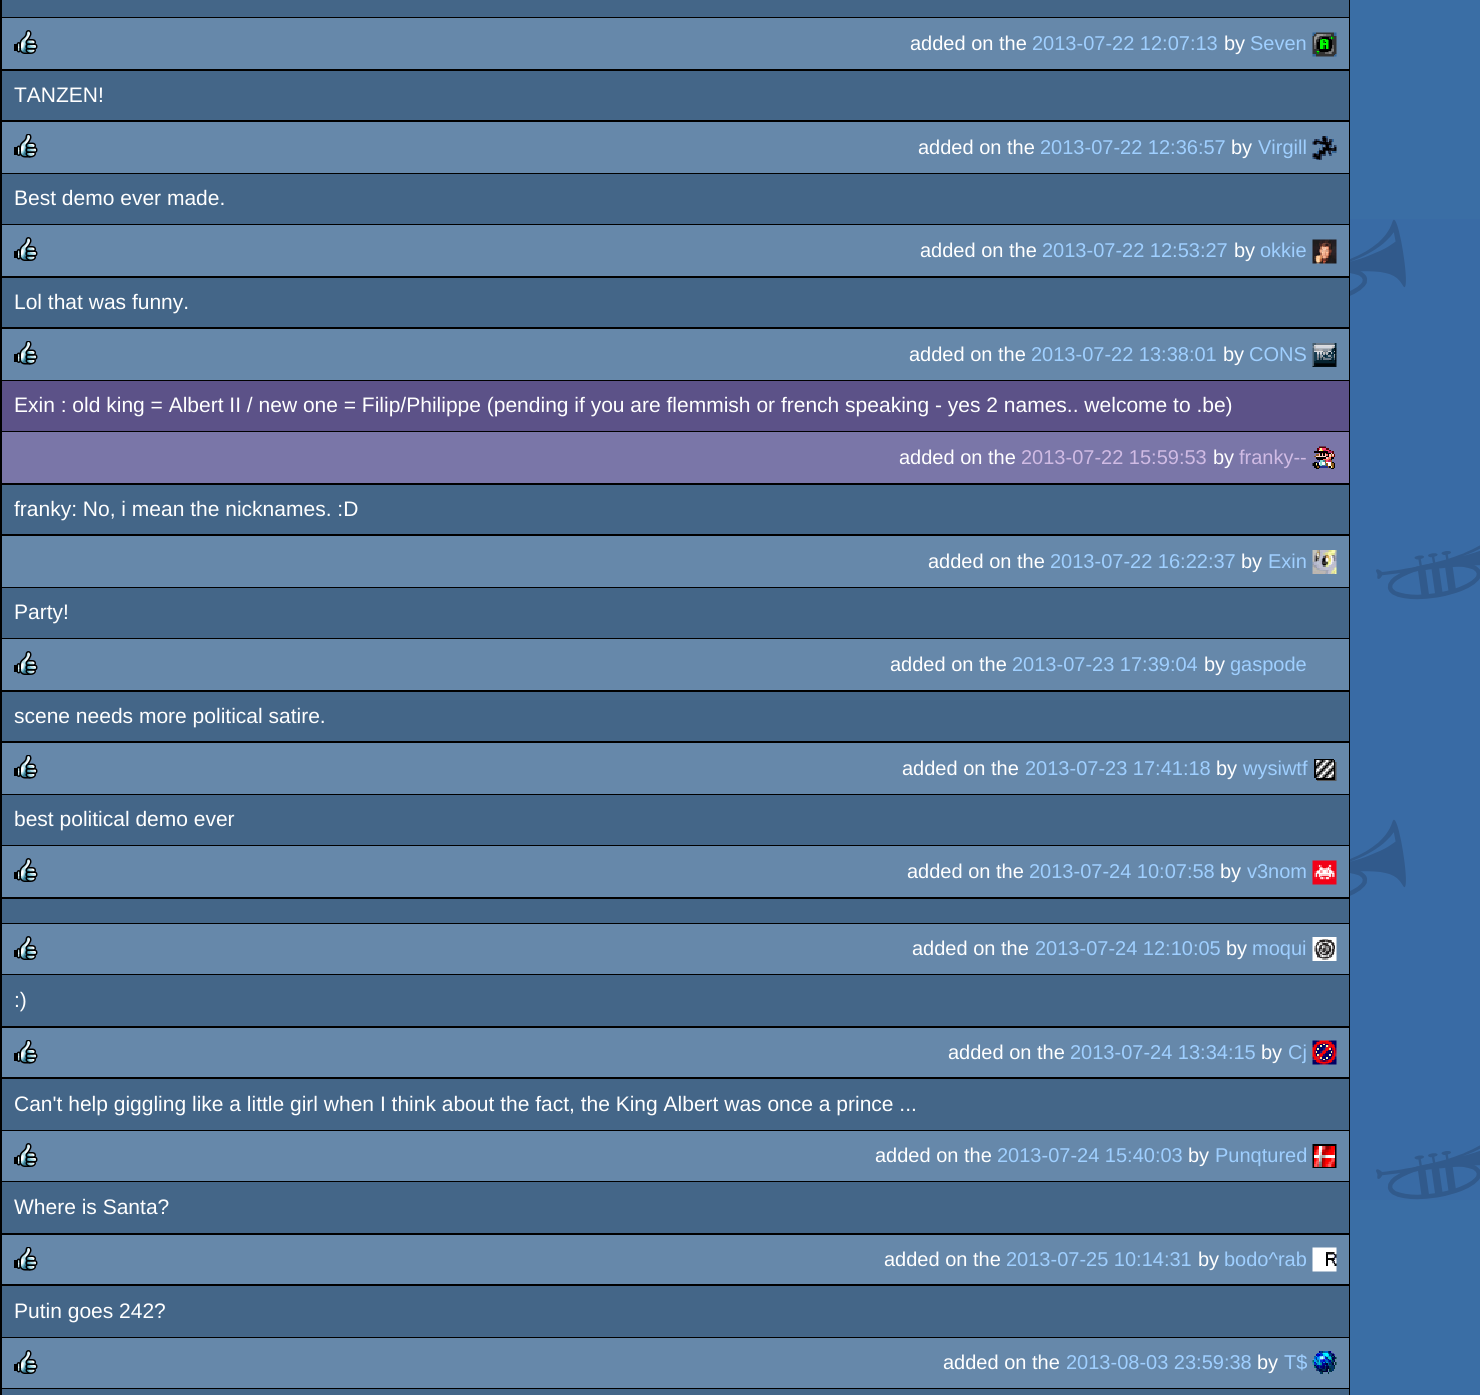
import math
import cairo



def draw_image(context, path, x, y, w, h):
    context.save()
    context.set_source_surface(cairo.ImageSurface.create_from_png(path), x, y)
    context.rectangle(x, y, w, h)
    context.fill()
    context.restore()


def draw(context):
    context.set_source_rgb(58 / 255, 110 / 255, 165 / 255)
    context.paint()
    draw_image(context, "images/1.png", 1350, 219, 130, 981)
    context.set_source_rgb(0, 0, 0)
    context.rectangle(0, 0, 1350, 1395)
    context.fill()
    context.set_source_rgb(68 / 255, 102 / 255, 136 / 255)
    context.rectangle(2, 0, 1347, 17)
    context.fill()
    context.set_source_rgb(102 / 255, 136 / 255, 170 / 255)
    context.rectangle(2, 18, 1347, 51)
    context.fill()
    draw_image(context, "images/2.png", 14, 30, 24, 24)
    draw_image(context, "images/3.png", 1312, 32, 25, 25)
    context.set_source_rgb(68 / 255, 102 / 255, 136 / 255)
    context.rectangle(2, 71, 1347, 49)
    context.fill()
    context.set_source_rgb(102 / 255, 136 / 255, 170 / 255)
    context.rectangle(2, 122, 1347, 51)
    context.fill()
    draw_image(context, "images/4.png", 14, 134, 24, 24)
    draw_image(context, "images/5.png", 1312, 136, 25, 24)
    context.set_source_rgb(68 / 255, 102 / 255, 136 / 255)
    context.rectangle(2, 174, 1347, 50)
    context.fill()
    context.set_source_rgb(102 / 255, 136 / 255, 170 / 255)
    context.rectangle(2, 225, 1347, 51)
    context.fill()
    draw_image(context, "images/2.png", 14, 237, 24, 24)
    draw_image(context, "images/6.png", 1312, 239, 25, 25)
    context.set_source_rgb(68 / 255, 102 / 255, 136 / 255)
    context.rectangle(2, 278, 1347, 49)
    context.fill()
    context.set_source_rgb(102 / 255, 136 / 255, 170 / 255)
    context.rectangle(2, 329, 1347, 51)
    context.fill()
    draw_image(context, "images/4.png", 14, 341, 24, 24)
    draw_image(context, "images/7.png", 1312, 343, 25, 24)
    context.set_source_rgb(92 / 255, 82 / 255, 136 / 255)
    context.rectangle(2, 381, 1347, 50)
    context.fill()
    context.set_source_rgb(122 / 255, 118 / 255, 168 / 255)
    context.rectangle(2, 432, 1347, 51)
    context.fill()
    draw_image(context, "images/8.png", 1312, 446, 23, 23)
    context.set_source_rgb(68 / 255, 102 / 255, 136 / 255)
    context.rectangle(2, 485, 1347, 49)
    context.fill()
    context.set_source_rgb(102 / 255, 136 / 255, 170 / 255)
    context.rectangle(2, 536, 1347, 51)
    context.fill()
    draw_image(context, "images/9.png", 1312, 550, 25, 24)
    context.set_source_rgb(68 / 255, 102 / 255, 136 / 255)
    context.rectangle(2, 588, 1347, 50)
    context.fill()
    context.set_source_rgb(102 / 255, 136 / 255, 170 / 255)
    context.rectangle(2, 639, 1347, 51)
    context.fill()
    draw_image(context, "images/2.png", 14, 651, 24, 24)
    context.set_source_rgb(68 / 255, 102 / 255, 136 / 255)
    context.rectangle(2, 692, 1347, 49)
    context.fill()
    context.set_source_rgb(102 / 255, 136 / 255, 170 / 255)
    context.rectangle(2, 743, 1347, 51)
    context.fill()
    draw_image(context, "images/4.png", 14, 755, 24, 24)
    draw_image(context, "images/10.png", 1314, 759, 23, 22)
    context.set_source_rgb(68 / 255, 102 / 255, 136 / 255)
    context.rectangle(2, 795, 1347, 50)
    context.fill()
    context.set_source_rgb(102 / 255, 136 / 255, 170 / 255)
    context.rectangle(2, 846, 1347, 51)
    context.fill()
    draw_image(context, "images/2.png", 14, 858, 24, 24)
    draw_image(context, "images/11.png", 1312, 860, 25, 25)
    context.set_source_rgb(68 / 255, 102 / 255, 136 / 255)
    context.rectangle(2, 899, 1347, 24)
    context.fill()
    context.set_source_rgb(102 / 255, 136 / 255, 170 / 255)
    context.rectangle(2, 924, 1347, 50)
    context.fill()
    draw_image(context, "images/2.png", 14, 936, 24, 24)
    draw_image(context, "images/12.png", 1312, 937, 25, 24)
    context.set_source_rgb(68 / 255, 102 / 255, 136 / 255)
    context.rectangle(2, 975, 1347, 51)
    context.fill()
    context.set_source_rgb(102 / 255, 136 / 255, 170 / 255)
    context.rectangle(2, 1028, 1347, 49)
    context.fill()
    draw_image(context, "images/4.png", 14, 1040, 24, 24)
    draw_image(context, "images/13.png", 1312, 1040, 25, 25)
    context.set_source_rgb(68 / 255, 102 / 255, 136 / 255)
    context.rectangle(2, 1079, 1347, 51)
    context.fill()
    context.set_source_rgb(102 / 255, 136 / 255, 170 / 255)
    context.rectangle(2, 1131, 1347, 50)
    context.fill()
    draw_image(context, "images/2.png", 14, 1143, 24, 24)
    draw_image(context, "images/14.png", 1312, 1144, 25, 24)
    context.set_source_rgb(68 / 255, 102 / 255, 136 / 255)
    context.rectangle(2, 1182, 1347, 51)
    context.fill()
    context.set_source_rgb(102 / 255, 136 / 255, 170 / 255)
    context.rectangle(2, 1235, 1347, 49)
    context.fill()
    draw_image(context, "images/4.png", 14, 1247, 24, 24)
    draw_image(context, "images/15.png", 1312, 1247, 25, 25)
    context.set_source_rgb(68 / 255, 102 / 255, 136 / 255)
    context.rectangle(2, 1286, 1347, 51)
    context.fill()
    context.set_source_rgb(102 / 255, 136 / 255, 170 / 255)
    context.rectangle(2, 1338, 1347, 50)
    context.fill()
    draw_image(context, "images/2.png", 14, 1350, 24, 24)
    draw_image(context, "images/16.png", 1312, 1351, 25, 23)
    context.set_source_rgb(68 / 255, 102 / 255, 136 / 255)
    context.rectangle(2, 1389, 1347, 6)
    context.fill()
    context.select_font_face("Liberation Sans")
    context.set_font_size(20)
    context.set_source_rgb(1, 1, 1)
    context.move_to(910, 50)
    context.show_text("added on the")
    context.set_source_rgb(159 / 255, 207 / 255, 1)
    context.move_to(1032, 50)
    context.show_text("2013-07-22 12:07:13")
    context.set_source_rgb(1, 1, 1)
    context.move_to(1224, 50)
    context.show_text("by")
    context.set_source_rgb(159 / 255, 207 / 255, 1)
    context.move_to(1250, 50)
    context.show_text("Seven")
    context.set_font_size(21)
    context.set_source_rgb(1, 1, 1)
    context.move_to(14, 102)
    context.show_text("TANZEN!")
    context.set_font_size(20)
    context.move_to(918, 154)
    context.show_text("added on the")
    context.set_source_rgb(159 / 255, 207 / 255, 1)
    context.move_to(1040, 154)
    context.show_text("2013-07-22 12:36:57")
    context.set_source_rgb(1, 1, 1)
    context.move_to(1231, 154)
    context.show_text("by")
    context.set_source_rgb(159 / 255, 207 / 255, 1)
    context.move_to(1258, 154)
    context.show_text("Virgill")
    context.set_font_size(21)
    context.set_source_rgb(1, 1, 1)
    context.move_to(14, 205)
    context.show_text("Best demo ever made.")
    context.set_font_size(20)
    context.move_to(920, 257)
    context.show_text("added on the")
    context.set_source_rgb(159 / 255, 207 / 255, 1)
    context.move_to(1042, 257)
    context.show_text("2013-07-22 12:53:27")
    context.set_source_rgb(1, 1, 1)
    context.move_to(1234, 257)
    context.show_text("by")
    context.set_source_rgb(159 / 255, 207 / 255, 1)
    context.move_to(1260, 257)
    context.show_text("okkie")
    context.set_font_size(21)
    context.set_source_rgb(1, 1, 1)
    context.move_to(14, 309)
    context.show_text("Lol that was funny.")
    context.set_font_size(20)
    context.move_to(909, 361)
    context.show_text("added on the")
    context.set_source_rgb(159 / 255, 207 / 255, 1)
    context.move_to(1031, 361)
    context.show_text("2013-07-22 13:38:01")
    context.set_source_rgb(1, 1, 1)
    context.move_to(1223, 361)
    context.show_text("by")
    context.set_source_rgb(159 / 255, 207 / 255, 1)
    context.move_to(1249, 361)
    context.show_text("CONS")
    context.set_font_size(21)
    context.set_source_rgb(1, 1, 1)
    context.move_to(14, 412)
    context.show_text("Exin : old king = Albert II / new one = Filip/Philippe (pending if you are flemmish or french speaking - yes 2 names.. welcome to .be)")
    context.set_font_size(20)
    context.move_to(899, 464)
    context.show_text("added on the")
    context.set_source_rgb(208 / 255, 187 / 255, 228 / 255)
    context.move_to(1021, 464)
    context.show_text("2013-07-22 15:59:53")
    context.set_source_rgb(1, 1, 1)
    context.move_to(1213, 464)
    context.show_text("by")
    context.set_source_rgb(208 / 255, 187 / 255, 228 / 255)
    context.move_to(1239, 464)
    context.show_text("franky--")
    context.set_font_size(21)
    context.set_source_rgb(1, 1, 1)
    context.move_to(14, 516)
    context.show_text("franky: No, i mean the nicknames. :D")
    context.set_font_size(20)
    context.move_to(928, 568)
    context.show_text("added on the")
    context.set_source_rgb(159 / 255, 207 / 255, 1)
    context.move_to(1050, 568)
    context.show_text("2013-07-22 16:22:37")
    context.set_source_rgb(1, 1, 1)
    context.move_to(1241, 568)
    context.show_text("by")
    context.set_source_rgb(159 / 255, 207 / 255, 1)
    context.move_to(1268, 568)
    context.show_text("Exin")
    context.set_font_size(21)
    context.set_source_rgb(1, 1, 1)
    context.move_to(14, 619)
    context.show_text("Party!")
    context.set_font_size(20)
    context.move_to(890, 671)
    context.show_text("added on the")
    context.set_source_rgb(159 / 255, 207 / 255, 1)
    context.move_to(1012, 671)
    context.show_text("2013-07-23 17:39:04")
    context.set_source_rgb(1, 1, 1)
    context.move_to(1204, 671)
    context.show_text("by")
    context.set_source_rgb(159 / 255, 207 / 255, 1)
    context.move_to(1230, 671)
    context.show_text("gaspode")
    context.set_font_size(21)
    context.set_source_rgb(1, 1, 1)
    context.move_to(14, 723)
    context.show_text("scene needs more political satire.")
    context.set_font_size(20)
    context.move_to(902, 775)
    context.show_text("added on the")
    context.set_source_rgb(159 / 255, 207 / 255, 1)
    context.move_to(1025, 775)
    context.show_text("2013-07-23 17:41:18")
    context.set_source_rgb(1, 1, 1)
    context.move_to(1216, 775)
    context.show_text("by")
    context.set_source_rgb(159 / 255, 207 / 255, 1)
    context.move_to(1243, 775)
    context.show_text("wysiwtf")
    context.set_font_size(21)
    context.set_source_rgb(1, 1, 1)
    context.move_to(14, 826)
    context.show_text("best political demo ever")
    context.set_font_size(20)
    context.move_to(907, 878)
    context.show_text("added on the")
    context.set_source_rgb(159 / 255, 207 / 255, 1)
    context.move_to(1029, 878)
    context.show_text("2013-07-24 10:07:58")
    context.set_source_rgb(1, 1, 1)
    context.move_to(1220, 878)
    context.show_text("by")
    context.set_source_rgb(159 / 255, 207 / 255, 1)
    context.move_to(1247, 878)
    context.show_text("v3nom")
    context.set_source_rgb(1, 1, 1)
    context.move_to(912, 955)
    context.show_text("added on the")
    context.set_source_rgb(159 / 255, 207 / 255, 1)
    context.move_to(1035, 955)
    context.show_text("2013-07-24 12:10:05")
    context.set_source_rgb(1, 1, 1)
    context.move_to(1226, 955)
    context.show_text("by")
    context.set_source_rgb(159 / 255, 207 / 255, 1)
    context.move_to(1252, 955)
    context.show_text("moqui")
    context.set_font_size(21)
    context.set_source_rgb(1, 1, 1)
    context.move_to(14, 1007)
    context.show_text(":)")
    context.set_font_size(20)
    context.move_to(948, 1059)
    context.show_text("added on the")
    context.set_source_rgb(159 / 255, 207 / 255, 1)
    context.move_to(1070, 1059)
    context.show_text("2013-07-24 13:34:15")
    context.set_source_rgb(1, 1, 1)
    context.move_to(1261, 1059)
    context.show_text("by")
    context.set_source_rgb(159 / 255, 207 / 255, 1)
    context.move_to(1288, 1059)
    context.show_text("Cj")
    context.set_font_size(21)
    context.set_source_rgb(1, 1, 1)
    context.move_to(14, 1111)
    context.show_text("Can't help giggling like a little girl when I think about the fact, the King Albert was once a prince ...")
    context.set_font_size(20)
    context.move_to(875, 1162)
    context.show_text("added on the")
    context.set_source_rgb(159 / 255, 207 / 255, 1)
    context.move_to(997, 1162)
    context.show_text("2013-07-24 15:40:03")
    context.set_source_rgb(1, 1, 1)
    context.move_to(1188, 1162)
    context.show_text("by")
    context.set_source_rgb(159 / 255, 207 / 255, 1)
    context.move_to(1215, 1162)
    context.show_text("Punqtured")
    context.set_font_size(21)
    context.set_source_rgb(1, 1, 1)
    context.move_to(14, 1214)
    context.show_text("Where is Santa?")
    context.set_font_size(20)
    context.move_to(884, 1266)
    context.show_text("added on the")
    context.set_source_rgb(159 / 255, 207 / 255, 1)
    context.move_to(1006, 1266)
    context.show_text("2013-07-25 10:14:31")
    context.set_source_rgb(1, 1, 1)
    context.move_to(1198, 1266)
    context.show_text("by")
    context.set_source_rgb(159 / 255, 207 / 255, 1)
    context.move_to(1224, 1266)
    context.show_text("bodo^rab")
    context.set_font_size(21)
    context.set_source_rgb(1, 1, 1)
    context.move_to(14, 1318)
    context.show_text("Putin goes 242?")
    context.set_font_size(20)
    context.move_to(943, 1369)
    context.show_text("added on the")
    context.set_source_rgb(159 / 255, 207 / 255, 1)
    context.move_to(1066, 1369)
    context.show_text("2013-08-03 23:59:38")
    context.set_source_rgb(1, 1, 1)
    context.move_to(1257, 1369)
    context.show_text("by")
    context.set_source_rgb(159 / 255, 207 / 255, 1)
    context.move_to(1284, 1369)
    context.show_text("T$")


surface = cairo.ImageSurface(cairo.Format.RGB24, 1480, 1395)
context = cairo.Context(surface)
options = cairo.FontOptions()
options.set_hint_metrics(cairo.HintMetrics.OFF)
options.set_hint_style(cairo.HintStyle.NONE)
context.set_font_options(options)
context.set_miter_limit(4)
draw(context)
surface.write_to_png("out.png")
